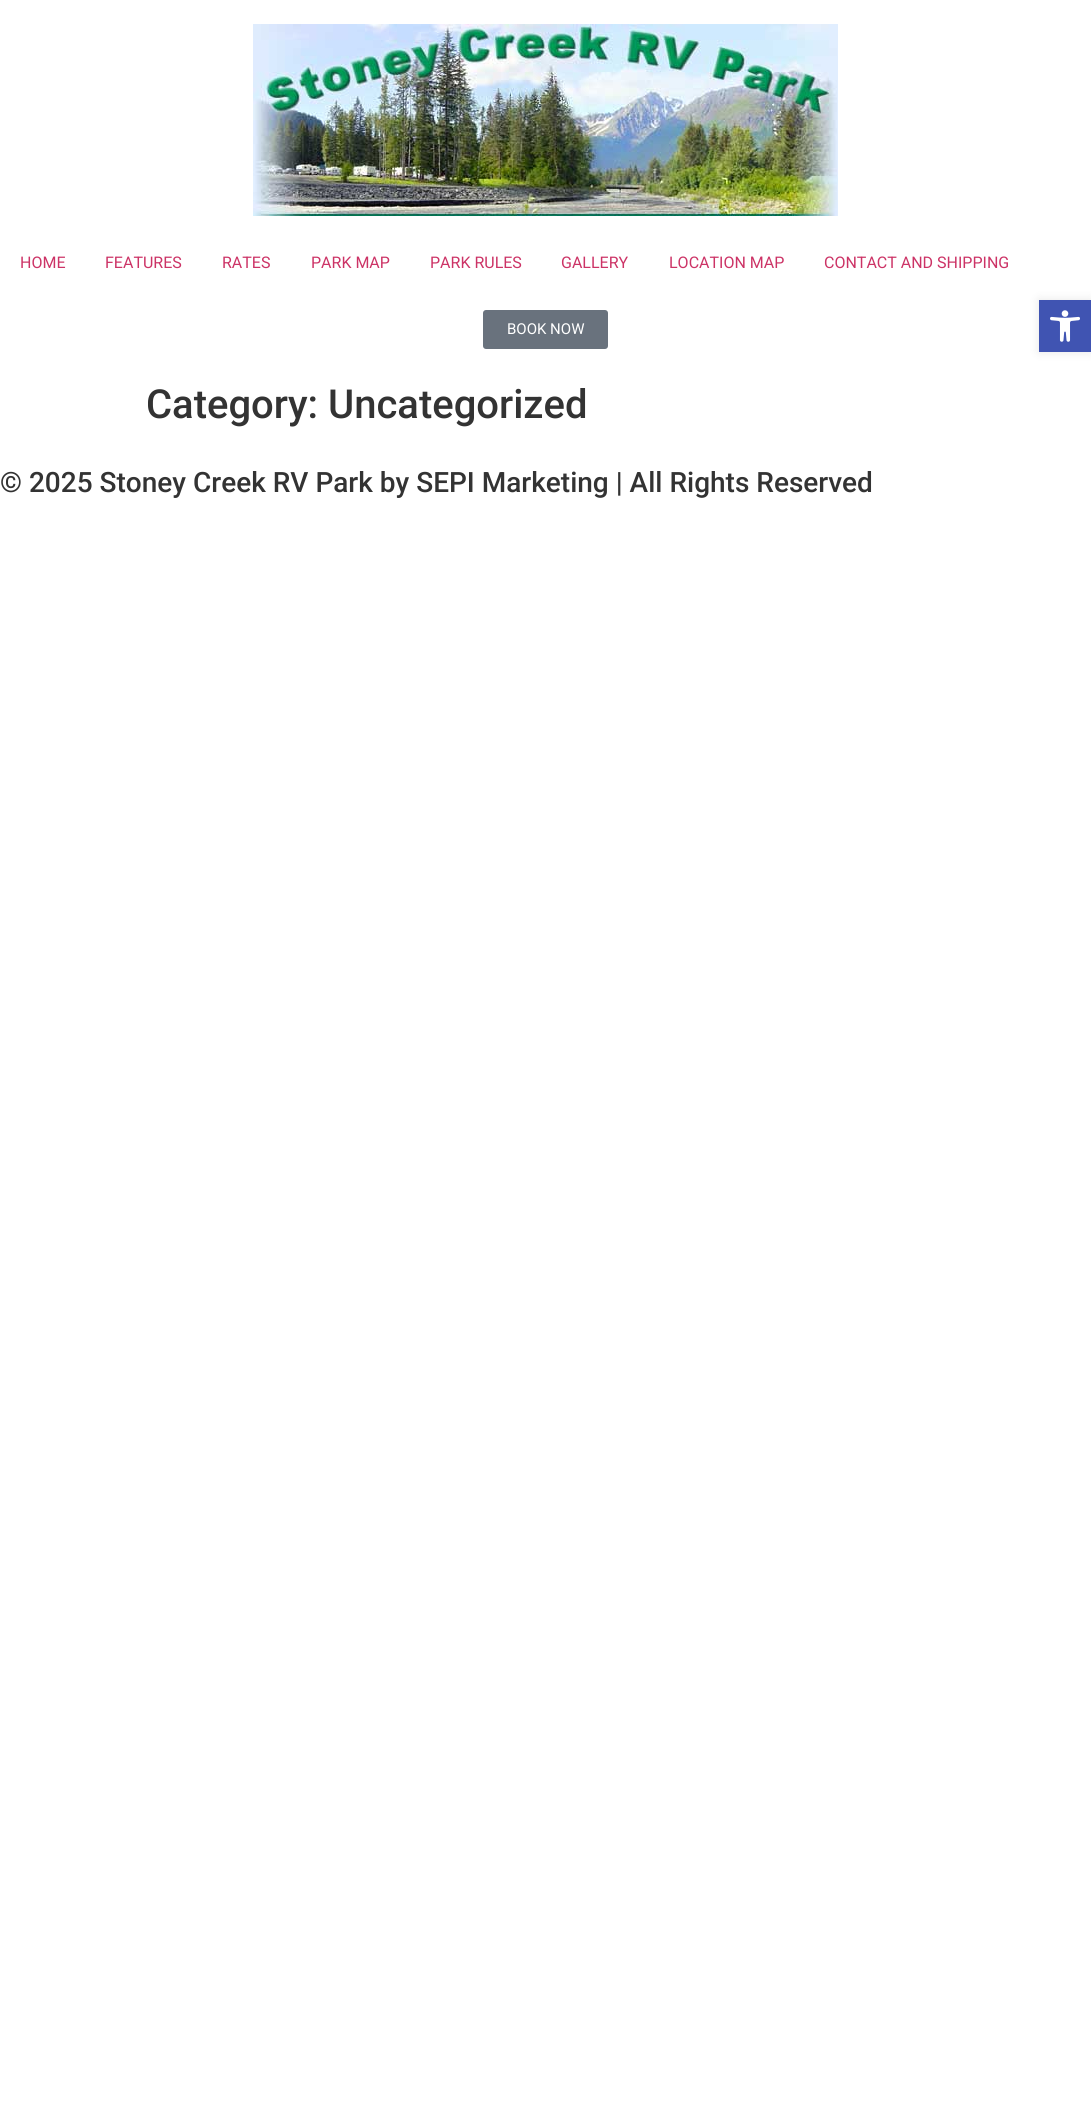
import math
import cairo



def rounded_rect(context, x, y, w, h, r):
    context.new_sub_path()
    for i, (u, v) in enumerate([(x + w - r, y + h - r), (x + r, y + h - r), (x + r, y + r), (x + w - r, y + r)]):
        context.arc(u, v, r, i * math.pi / 2, (i + 1) * math.pi / 2)
    context.close_path()


def draw_shadow(context, x, y, w, h, r, blur, alpha):
    context.push_group_with_content(cairo.Content.ALPHA)
    context.set_operator(cairo.Operator.SOURCE)
    for i in range(15, -16, -2):
        e = blur * i / 6
        if min(w, h) + 2 * e > 0:
            context.set_source_rgba(0, 0, 0, alpha * math.erfc((i - 1) / 8.5) / 2)
            rounded_rect(context, x - e, y - e, w + 2 * e, h + 2 * e, max(0, min(r + e + blur * .6, min(w, h) / 2 + e)))
            context.fill()
    context.mask(context.pop_group())


def draw_image(context, path, x, y, w, h):
    context.save()
    context.set_source_surface(cairo.ImageSurface.create_from_png(path), x, y)
    context.rectangle(x, y, w, h)
    context.fill()
    context.restore()


def draw(context):
    context.set_source_rgb(1, 1, 1)
    context.paint()
    draw_image(context, "images/1.png", 253, 24, 585, 192)
    context.set_source_rgb(105 / 255, 114 / 255, 125 / 255)
    rounded_rect(context, 483, 310, 125, 39, 3)
    context.fill()
    context.set_source_rgb(0, 0, 0)
    draw_shadow(context, 1039, 300, 52, 52, 0, 5, 0.1)
    context.set_source_rgb(64 / 255, 84 / 255, 178 / 255)
    context.rectangle(1039, 300, 52, 52)
    context.fill()
    draw_image(context, "images/2.png", 1050, 310, 30, 32)
    context.select_font_face("Roboto")
    context.set_font_size(16)
    context.set_source_rgb(204 / 255, 51 / 255, 102 / 255)
    context.move_to(20, 268)
    context.show_text("HOME")
    context.move_to(105, 268)
    context.show_text("FEATURES")
    context.move_to(222, 268)
    context.show_text("RATES")
    context.move_to(311, 268)
    context.show_text("PARK MAP")
    context.move_to(430, 268)
    context.show_text("PARK RULES")
    context.move_to(561, 268)
    context.show_text("GALLERY")
    context.move_to(669, 268)
    context.show_text("LOCATION MAP")
    context.move_to(824, 268)
    context.show_text("CONTACT AND SHIPPING")
    context.set_font_size(15)
    context.set_source_rgb(1, 1, 1)
    context.move_to(507, 334)
    context.show_text("BOOK NOW")
    context.select_font_face("Roboto Medium")
    context.set_font_size(40)
    context.set_source_rgb(51 / 255, 51 / 255, 51 / 255)
    context.move_to(146, 418)
    context.show_text("Category: Uncategorized")
    context.set_font_size(28)
    context.move_to(0, 492)
    context.show_text("© 2025 Stoney Creek RV Park by SEPI Marketing | All Rights Reserved")


surface = cairo.ImageSurface(cairo.Format.RGB24, 1091, 2128)
context = cairo.Context(surface)
options = cairo.FontOptions()
options.set_hint_metrics(cairo.HintMetrics.OFF)
options.set_hint_style(cairo.HintStyle.NONE)
context.set_font_options(options)
context.set_miter_limit(4)
draw(context)
surface.write_to_png("out.png")
